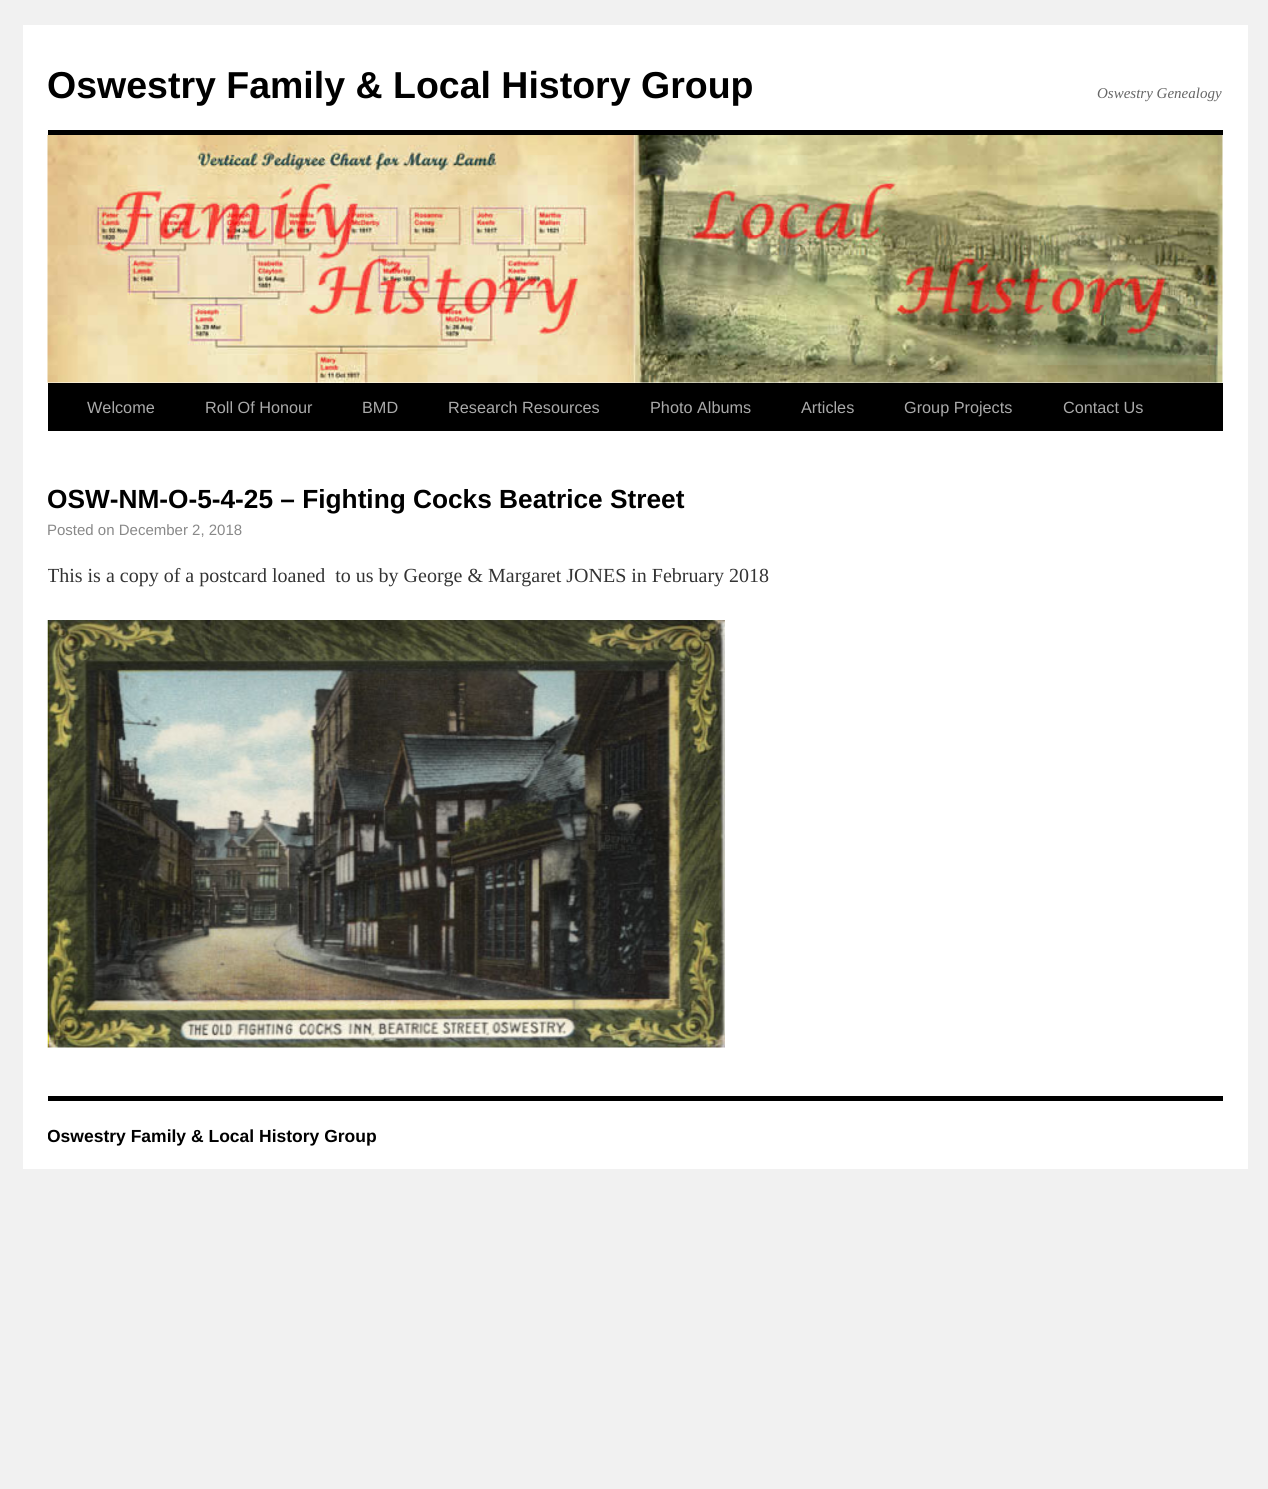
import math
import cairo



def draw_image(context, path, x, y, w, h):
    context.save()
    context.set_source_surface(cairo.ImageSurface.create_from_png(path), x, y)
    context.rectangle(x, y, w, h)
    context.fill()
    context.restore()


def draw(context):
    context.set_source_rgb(241 / 255, 241 / 255, 241 / 255)
    context.paint()
    context.set_source_rgb(1, 1, 1)
    context.rectangle(23, 25, 1225, 1144)
    context.fill()
    context.set_source_rgb(0, 0, 0)
    context.rectangle(48, 130, 1175, 5)
    context.fill()
    context.rectangle(48, 383, 1175, 48)
    context.fill()
    draw_image(context, "images/1.png", 47, 135, 1176, 248)
    draw_image(context, "images/2.png", 47, 620, 678, 428)
    context.rectangle(48, 1096, 1175, 5)
    context.fill()
    context.select_font_face("Liberation Sans", cairo.FontSlant.NORMAL, cairo.FontWeight.BOLD)
    context.set_font_size(37.5)
    context.move_to(47, 98)
    context.show_text("Oswestry Family & Local History Group")
    context.select_font_face("Liberation Serif", cairo.FontSlant.ITALIC)
    context.set_font_size(15)
    context.set_source_rgb(102 / 255, 102 / 255, 102 / 255)
    context.move_to(1097, 98)
    context.show_text("Oswestry Genealogy")
    context.select_font_face("Liberation Sans")
    context.set_font_size(16.25)
    context.set_source_rgb(170 / 255, 170 / 255, 170 / 255)
    context.move_to(87, 413)
    context.show_text("Welcome")
    context.move_to(205, 413)
    context.show_text("Roll Of Honour")
    context.move_to(362, 413)
    context.show_text("BMD")
    context.move_to(448, 413)
    context.show_text("Research Resources")
    context.move_to(650, 413)
    context.show_text("Photo Albums")
    context.move_to(801, 413)
    context.show_text("Articles")
    context.move_to(904, 413)
    context.show_text("Group Projects")
    context.move_to(1063, 413)
    context.show_text("Contact Us")
    context.select_font_face("Liberation Sans", cairo.FontSlant.NORMAL, cairo.FontWeight.BOLD)
    context.set_font_size(26.25)
    context.set_source_rgb(0, 0, 0)
    context.move_to(47, 508)
    context.show_text("OSW-NM-O-5-4-25 – Fighting Cocks Beatrice Street")
    context.select_font_face("Liberation Sans")
    context.set_font_size(15)
    context.set_source_rgb(136 / 255, 136 / 255, 136 / 255)
    context.move_to(47, 535)
    context.show_text("Posted on December 2, 2018")
    context.save()
    context.rectangle(48, 431, 1175, 670)
    context.clip()
    context.select_font_face("Liberation Serif")
    context.set_font_size(20)
    context.set_source_rgb(51 / 255, 51 / 255, 51 / 255)
    context.move_to(47, 582)
    context.show_text("This is a copy of a postcard loaned  to us by George & Margaret JONES in February 2018")
    context.restore()
    context.save()
    context.rectangle(48, 1101, 1175, 68)
    context.clip()
    context.select_font_face("Liberation Sans", cairo.FontSlant.NORMAL, cairo.FontWeight.BOLD)
    context.set_font_size(17.5)
    context.set_source_rgb(0, 0, 0)
    context.move_to(47, 1142)
    context.show_text("Oswestry Family & Local History Group")
    context.restore()


surface = cairo.ImageSurface(cairo.Format.RGB24, 1268, 1489)
context = cairo.Context(surface)
options = cairo.FontOptions()
options.set_hint_metrics(cairo.HintMetrics.OFF)
options.set_hint_style(cairo.HintStyle.NONE)
context.set_font_options(options)
context.set_miter_limit(4)
draw(context)
surface.write_to_png("out.png")
